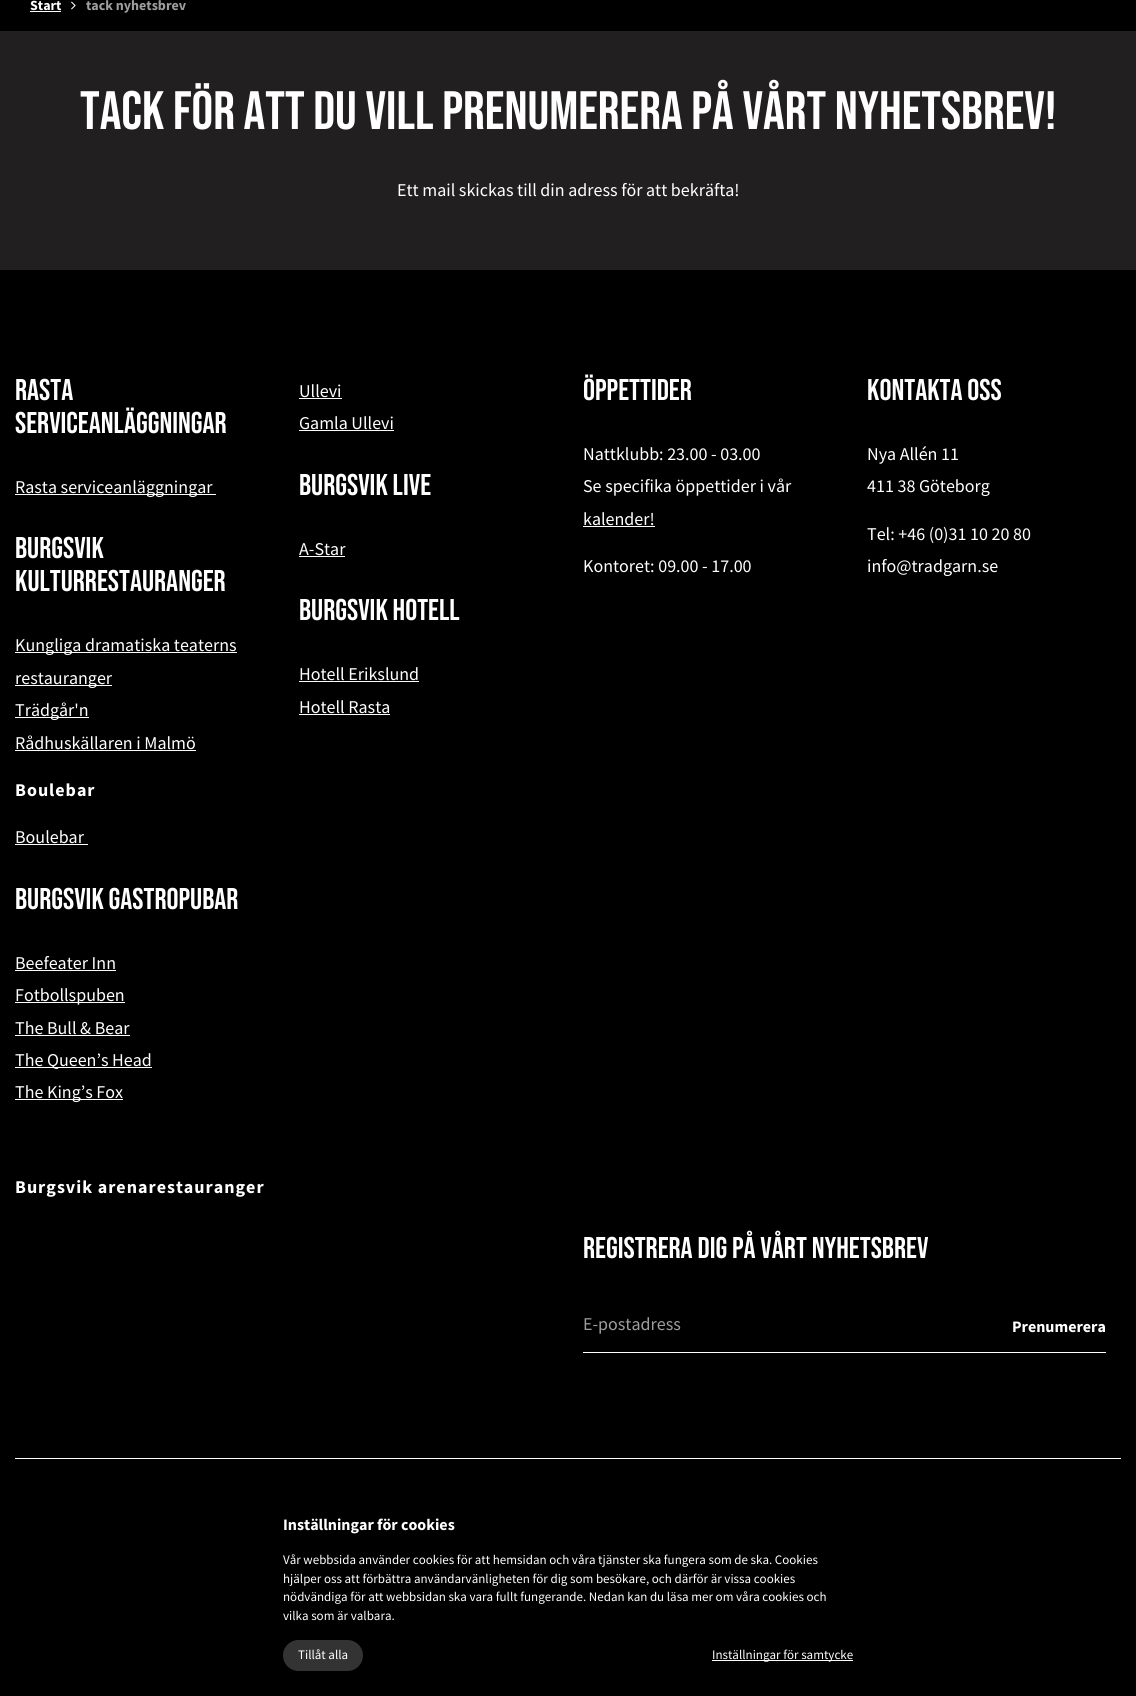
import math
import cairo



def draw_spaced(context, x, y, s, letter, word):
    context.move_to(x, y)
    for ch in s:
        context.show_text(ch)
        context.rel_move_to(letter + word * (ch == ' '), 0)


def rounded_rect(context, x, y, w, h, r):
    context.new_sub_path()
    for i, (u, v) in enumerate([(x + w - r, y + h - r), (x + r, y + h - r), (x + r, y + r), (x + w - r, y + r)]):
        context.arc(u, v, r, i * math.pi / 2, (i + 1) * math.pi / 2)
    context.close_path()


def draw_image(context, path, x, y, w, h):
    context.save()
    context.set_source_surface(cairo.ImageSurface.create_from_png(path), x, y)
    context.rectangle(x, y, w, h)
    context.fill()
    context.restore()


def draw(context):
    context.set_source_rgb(0, 0, 0)
    context.paint()
    context.set_source_rgb(34 / 255, 31 / 255, 33 / 255)
    context.rectangle(0, 31, 1136, 239)
    context.fill()
    context.set_source_rgb(1, 1, 1)
    context.rectangle(30, 11, 31, 1)
    context.fill()
    draw_image(context, "images/1.png", 71, 1, 5, 9)
    context.set_source_rgb(253 / 255, 253 / 255, 253 / 255)
    context.rectangle(15, 494, 201, 1)
    context.fill()
    context.rectangle(15, 652, 222, 1)
    context.fill()
    context.rectangle(15, 685, 97, 1)
    context.fill()
    context.rectangle(15, 717, 74, 1)
    context.fill()
    context.rectangle(15, 750, 181, 1)
    context.fill()
    context.rectangle(15, 844, 73, 1)
    context.fill()
    context.rectangle(15, 970, 101, 1)
    context.fill()
    context.rectangle(15, 1002, 110, 1)
    context.fill()
    context.rectangle(15, 1035, 115, 1)
    context.fill()
    context.rectangle(15, 1067, 137, 1)
    context.fill()
    context.rectangle(15, 1099, 108, 1)
    context.fill()
    context.rectangle(299, 398, 43, 1)
    context.fill()
    context.rectangle(299, 430, 95, 1)
    context.fill()
    context.rectangle(299, 556, 46, 1)
    context.fill()
    context.rectangle(299, 681, 120, 1)
    context.fill()
    context.rectangle(299, 714, 91, 1)
    context.fill()
    context.rectangle(583, 526, 72, 1)
    context.fill()
    context.set_source_rgb(1, 1, 1)
    context.rectangle(583, 1352, 523, 1)
    context.fill()
    context.rectangle(15, 1458, 1106, 1)
    context.fill()
    context.set_source_rgb(51 / 255, 51 / 255, 51 / 255)
    rounded_rect(context, 283, 1640, 80, 31, 15.5)
    context.fill()
    context.set_source_rgb(1, 1, 1)
    context.rectangle(712, 1660, 141, 1)
    context.fill()
    context.select_font_face("Source Sans Pro", cairo.FontSlant.NORMAL, cairo.FontWeight.BOLD)
    context.set_font_size(14)
    context.move_to(30, 10)
    context.show_text("Start")
    context.set_source_rgb(158 / 255, 158 / 255, 158 / 255)
    context.move_to(86, 10)
    context.show_text("tack nyhetsbrev")
    context.select_font_face("Bebas Neue")
    context.set_font_size(54)
    context.set_source_rgb(1, 1, 1)
    context.move_to(80, 129)
    context.show_text("TACK FÖR ATT DU VILL PRENUMERERA PÅ VÅRT NYHETSBREV!")
    context.select_font_face("Source Sans Pro")
    context.set_font_size(18)
    context.move_to(397, 196)
    context.show_text("Ett mail skickas till din adress för att bekräfta!")
    context.select_font_face("Bebas Neue")
    context.set_font_size(30)
    context.move_to(15, 400)
    context.show_text("Rasta")
    context.move_to(15, 433)
    context.show_text("serviceanläggningar")
    context.select_font_face("Source Sans Pro")
    context.set_font_size(18)
    context.move_to(15, 493)
    context.show_text("Rasta serviceanläggningar")
    context.select_font_face("Bebas Neue")
    context.set_font_size(30)
    context.move_to(15, 558)
    context.show_text("Burgsvik")
    context.move_to(15, 591)
    context.show_text("kulturrestauranger")
    context.select_font_face("Source Sans Pro")
    context.set_font_size(18)
    context.move_to(15, 651)
    context.show_text("Kungliga dramatiska teaterns")
    context.move_to(15, 684)
    context.show_text("restauranger")
    context.move_to(15, 716)
    context.show_text("Trädgår'n")
    context.move_to(15, 749)
    context.show_text("Rådhuskällaren i Malmö")
    context.select_font_face("Source Sans Pro", cairo.FontSlant.NORMAL, cairo.FontWeight.BOLD)
    draw_spaced(context, 15, 796, "Boulebar", 1, 0)
    context.select_font_face("Source Sans Pro")
    context.move_to(15, 843)
    context.show_text("Boulebar")
    context.select_font_face("Bebas Neue")
    context.set_font_size(30)
    context.move_to(15, 909)
    context.show_text("Burgsvik Gastropubar")
    context.select_font_face("Source Sans Pro")
    context.set_font_size(18)
    context.move_to(15, 969)
    context.show_text("Beefeater Inn")
    context.move_to(15, 1001)
    context.show_text("Fotbollspuben")
    context.move_to(15, 1034)
    context.show_text("The Bull & Bear")
    context.move_to(15, 1066)
    context.show_text("The Queen’s Head")
    context.move_to(15, 1098)
    context.show_text("The King’s Fox")
    context.select_font_face("Source Sans Pro", cairo.FontSlant.NORMAL, cairo.FontWeight.BOLD)
    draw_spaced(context, 15, 1193, "Burgsvik arenarestauranger", 1, 0)
    context.select_font_face("Source Sans Pro")
    context.move_to(299, 397)
    context.show_text("Ullevi")
    context.move_to(299, 429)
    context.show_text("Gamla Ullevi")
    context.select_font_face("Bebas Neue")
    context.set_font_size(30)
    context.move_to(299, 495)
    context.show_text("Burgsvik Live")
    context.select_font_face("Source Sans Pro")
    context.set_font_size(18)
    context.move_to(299, 555)
    context.show_text("A-Star")
    context.select_font_face("Bebas Neue")
    context.set_font_size(30)
    context.move_to(299, 620)
    context.show_text("Burgsvik hotell")
    context.select_font_face("Source Sans Pro")
    context.set_font_size(18)
    context.move_to(299, 680)
    context.show_text("Hotell Erikslund")
    context.move_to(299, 713)
    context.show_text("Hotell Rasta")
    context.select_font_face("Bebas Neue")
    context.set_font_size(30)
    context.move_to(583, 400)
    context.show_text("Öppettider")
    context.select_font_face("Source Sans Pro")
    context.set_font_size(18)
    context.move_to(583, 460)
    context.show_text("Nattklubb: 23.00 - 03.00")
    context.move_to(583, 492)
    context.show_text("Se specifika öppettider i vår")
    context.move_to(583, 525)
    context.show_text("kalender!")
    context.move_to(583, 572)
    context.show_text("Kontoret: 09.00 - 17.00")
    context.select_font_face("Bebas Neue")
    context.set_font_size(30)
    context.move_to(867, 400)
    context.show_text("Kontakta oss")
    context.select_font_face("Source Sans Pro")
    context.set_font_size(18)
    context.move_to(867, 460)
    context.show_text("Nya Allén 11")
    context.move_to(867, 492)
    context.show_text("411 38 Göteborg")
    context.move_to(867, 540)
    context.show_text("Tel: +46 (0)31 10 20 80")
    context.move_to(867, 572)
    context.show_text("info@tradgarn.se")
    context.select_font_face("Bebas Neue")
    context.set_font_size(30)
    context.move_to(583, 1258)
    context.show_text("Registrera dig på vårt nyhetsbrev")
    context.select_font_face("Source Sans Pro")
    context.set_font_size(18)
    context.set_source_rgb(158 / 255, 158 / 255, 158 / 255)
    context.move_to(583, 1330)
    context.show_text("E-postadress")
    context.select_font_face("Source Sans Pro", cairo.FontSlant.NORMAL, cairo.FontWeight.BOLD)
    context.set_font_size(16)
    context.set_source_rgb(1, 1, 1)
    context.move_to(1012, 1332)
    context.show_text("Prenumerera")
    context.move_to(283, 1530)
    context.show_text("Inställningar för cookies")
    context.select_font_face("Source Sans Pro")
    context.set_font_size(13)
    context.move_to(283, 1564)
    context.show_text("Vår webbsida använder cookies för att hemsidan och våra tjänster ska fungera som de ska. Cookies")
    context.move_to(283, 1583)
    context.show_text("hjälper oss att förbättra användarvänligheten för dig som besökare, och därför är vissa cookies")
    context.move_to(283, 1601)
    context.show_text("nödvändiga för att webbsidan ska vara fullt fungerande. Nedan kan du läsa mer om våra cookies och")
    context.move_to(283, 1620)
    context.show_text("vilka som är valbara.")
    context.move_to(298, 1659)
    context.show_text("Tillåt alla")
    context.move_to(712, 1659)
    context.show_text("Inställningar för samtycke")


surface = cairo.ImageSurface(cairo.Format.RGB24, 1136, 1696)
context = cairo.Context(surface)
options = cairo.FontOptions()
options.set_hint_metrics(cairo.HintMetrics.OFF)
options.set_hint_style(cairo.HintStyle.NONE)
context.set_font_options(options)
context.set_miter_limit(4)
draw(context)
surface.write_to_png("out.png")
